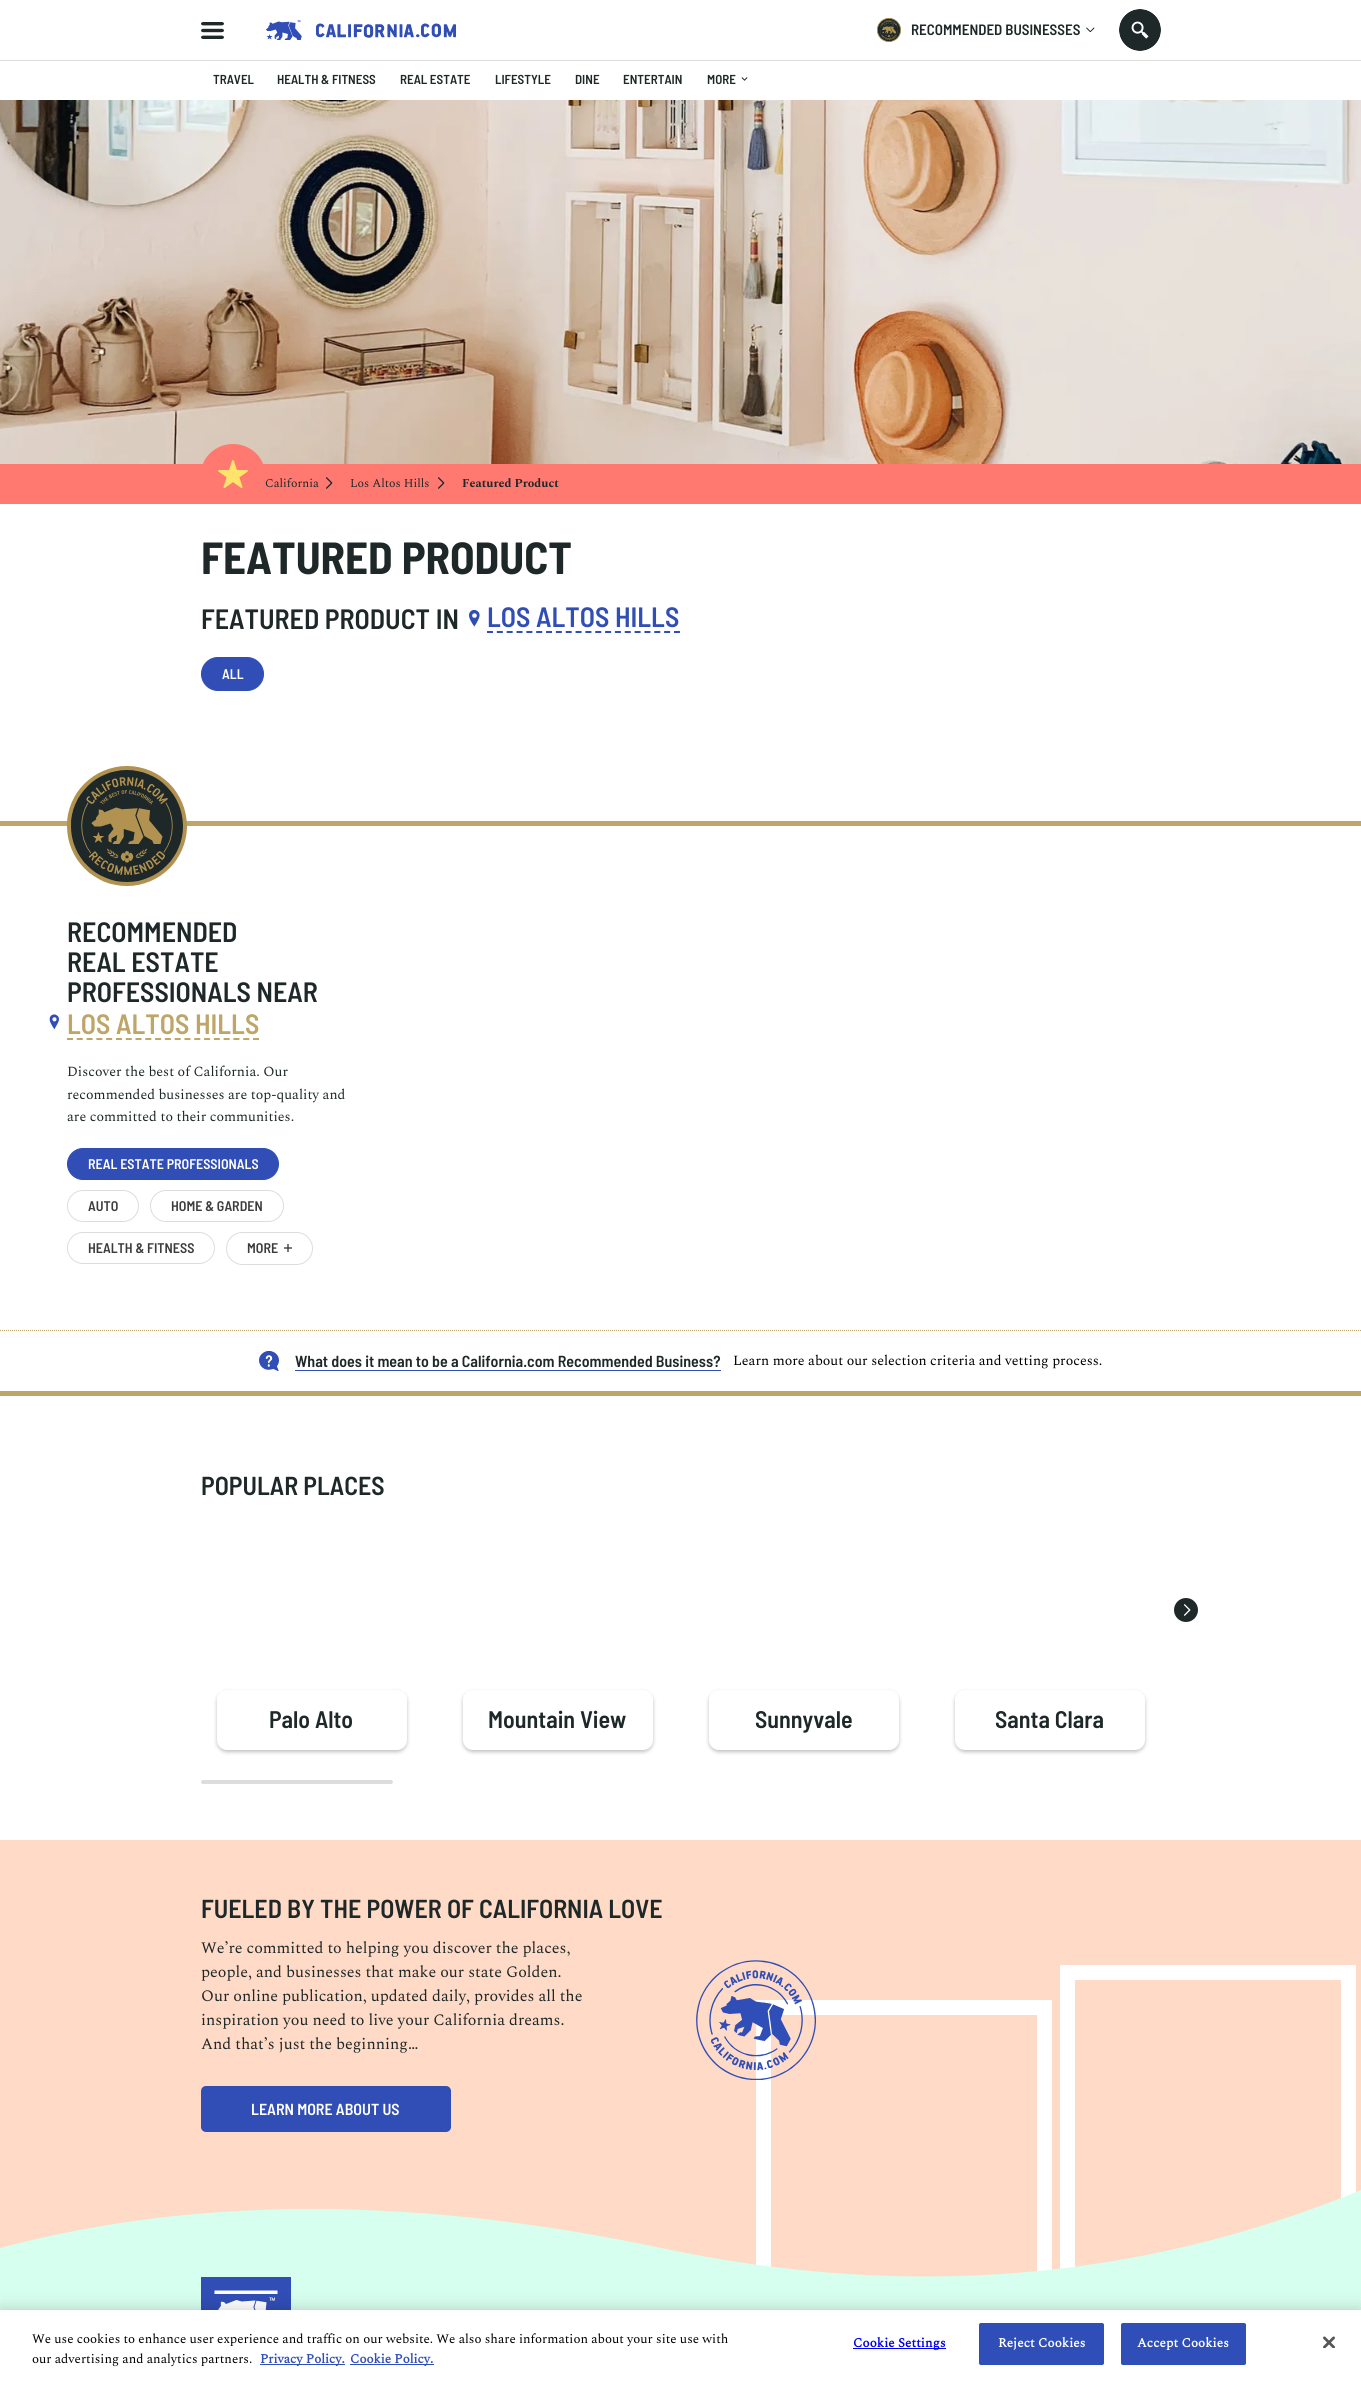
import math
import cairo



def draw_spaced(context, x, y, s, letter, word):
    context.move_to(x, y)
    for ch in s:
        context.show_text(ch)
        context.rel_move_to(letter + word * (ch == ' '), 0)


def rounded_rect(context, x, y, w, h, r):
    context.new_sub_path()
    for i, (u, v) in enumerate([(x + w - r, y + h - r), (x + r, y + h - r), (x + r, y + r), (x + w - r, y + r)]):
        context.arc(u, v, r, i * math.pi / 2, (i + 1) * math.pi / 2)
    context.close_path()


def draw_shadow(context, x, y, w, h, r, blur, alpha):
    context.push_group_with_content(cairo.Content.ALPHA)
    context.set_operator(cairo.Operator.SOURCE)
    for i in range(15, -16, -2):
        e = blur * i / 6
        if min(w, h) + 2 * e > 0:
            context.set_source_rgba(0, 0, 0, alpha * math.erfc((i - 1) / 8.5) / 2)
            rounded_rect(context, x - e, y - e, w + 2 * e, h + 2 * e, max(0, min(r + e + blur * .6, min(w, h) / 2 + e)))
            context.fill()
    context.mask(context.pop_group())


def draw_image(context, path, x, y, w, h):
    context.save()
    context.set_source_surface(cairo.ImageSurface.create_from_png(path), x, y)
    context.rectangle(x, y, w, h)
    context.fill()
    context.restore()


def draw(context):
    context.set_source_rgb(1, 1, 1)
    context.paint()
    context.set_source_rgb(221 / 255, 221 / 255, 221 / 255)
    context.rectangle(0, 60, 1361, 1)
    context.fill()
    draw_image(context, "images/1.png", 201, 22, 23, 17)
    draw_image(context, "images/2.png", 266, 20, 190, 20)
    draw_image(context, "images/3.png", 877, 18, 24, 24)
    draw_image(context, "images/4.png", 1086, 27, 9, 5)
    draw_image(context, "images/5.png", 1119, 9, 42, 42)
    draw_image(context, "images/6.png", 741, 77, 7, 4)
    draw_image(context, "images/7.png", 0, 100, 1361, 364)
    context.set_source_rgb(1, 121 / 255, 112 / 255)
    context.rectangle(0, 464, 1361, 40)
    context.fill()
    context.new_path()
    context.move_to(233, 444)
    context.curve_to(250.5, 444, 265, 457.5, 265, 474)
    context.curve_to(265, 490.5, 250.5, 504, 233, 504)
    context.curve_to(215.5, 504, 201, 490.5, 201, 474)
    context.curve_to(201, 457.5, 215.5, 444, 233, 444)
    context.close_path()
    context.fill()
    draw_image(context, "images/8.png", 218, 460, 30, 28)
    draw_image(context, "images/9.png", 325, 477, 8, 12)
    draw_image(context, "images/9.png", 437, 477, 8, 12)
    draw_image(context, "images/10.png", 469, 610, 11, 17)
    context.new_path()
    context.move_to(487, 632)
    context.line_to(680, 632)
    context.set_source_rgb(48 / 255, 78 / 255, 182 / 255)
    context.set_dash([6, 3.84])
    context.stroke()
    rounded_rect(context, 201.5, 657.5, 62, 33, 16.5)
    context.fill_preserve()
    context.set_line_width(1)
    context.set_dash([])
    context.stroke()
    context.set_source_rgb(189 / 255, 166 / 255, 103 / 255)
    context.rectangle(0, 821, 1361, 5)
    context.fill()
    draw_image(context, "images/11.png", 67, 766, 120, 120)
    draw_image(context, "images/12.png", 49, 1014, 10, 15)
    context.new_path()
    context.move_to(67, 1039)
    context.line_to(259, 1039)
    context.set_line_width(2)
    context.set_dash([6, 3.79])
    context.stroke()
    context.set_source_rgb(48 / 255, 78 / 255, 182 / 255)
    rounded_rect(context, 67.5, 1148.5, 211, 31, 15.5)
    context.fill_preserve()
    context.set_line_width(1)
    context.set_dash([])
    context.stroke()
    rounded_rect(context, 67.5, 1190.5, 71, 31, 15.5)
    context.set_source_rgb(221 / 255, 221 / 255, 221 / 255)
    context.stroke()
    rounded_rect(context, 150.5, 1190.5, 133, 31, 15.5)
    context.stroke()
    rounded_rect(context, 67.5, 1232.5, 147, 31, 15.5)
    context.stroke()
    rounded_rect(context, 226.5, 1232.5, 86, 32, 16)
    context.stroke()
    draw_image(context, "images/13.png", 284, 1244, 8, 8)
    context.new_path()
    context.move_to(0, 1330.5)
    context.line_to(1361, 1330.5)
    context.set_source_rgb(189 / 255, 166 / 255, 103 / 255)
    context.set_dash([1, 1])
    context.stroke()
    draw_image(context, "images/14.png", 259, 1351, 20, 20)
    context.set_source_rgb(48 / 255, 78 / 255, 182 / 255)
    context.rectangle(295, 1370, 426, 1)
    context.fill()
    context.set_source_rgb(189 / 255, 166 / 255, 103 / 255)
    context.rectangle(0, 1391, 1361, 5)
    context.fill()
    draw_image(context, "images/15.png", 1174, 1598, 24, 24)
    context.set_source_rgb(0, 0, 0)
    draw_shadow(context, 217, 1692, 190, 60, 10, 2, 0.25)
    context.set_source_rgb(1, 1, 1)
    rounded_rect(context, 217, 1690, 190, 60, 10)
    context.fill()
    context.set_source_rgb(0, 0, 0)
    draw_shadow(context, 463, 1692, 190, 60, 10, 2, 0.25)
    context.set_source_rgb(1, 1, 1)
    rounded_rect(context, 463, 1690, 190, 60, 10)
    context.fill()
    context.set_source_rgb(0, 0, 0)
    draw_shadow(context, 709, 1692, 190, 60, 10, 2, 0.25)
    context.set_source_rgb(1, 1, 1)
    rounded_rect(context, 709, 1690, 190, 60, 10)
    context.fill()
    context.set_source_rgb(0, 0, 0)
    draw_shadow(context, 955, 1692, 190, 60, 10, 2, 0.25)
    context.set_source_rgb(1, 1, 1)
    rounded_rect(context, 955, 1690, 190, 60, 10)
    context.fill()
    context.set_source_rgb(221 / 255, 221 / 255, 221 / 255)
    rounded_rect(context, 201, 1780, 192, 4, 2)
    context.fill()
    context.set_source_rgb(1, 218 / 255, 198 / 255)
    context.rectangle(0, 1840, 1361, 437)
    context.fill()
    context.set_source_rgb(48 / 255, 78 / 255, 182 / 255)
    rounded_rect(context, 201, 2086, 250, 46, 5)
    context.fill()
    context.rectangle(763.5, 2007.5, 281, 360)
    context.set_source_rgb(1, 1, 1)
    context.set_line_width(15)
    context.set_dash([])
    context.stroke()
    draw_image(context, "images/16.png", 696, 1960, 120, 120)
    context.rectangle(1067.5, 1972.5, 281, 360)
    context.stroke()
    context.set_source_rgb(215 / 255, 1, 239 / 255)
    context.set_fill_rule(cairo.FillRule.EVEN_ODD)
    context.new_path()
    context.move_to(1361, 2190)
    context.curve_to(1140, 2281, 906, 2300, 661, 2248)
    context.curve_to(415, 2196, 195, 2196, 0, 2248)
    context.line_to(0, 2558)
    context.line_to(1361, 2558)
    context.close_path()
    context.fill()
    context.set_source_rgb(48 / 255, 78 / 255, 182 / 255)
    context.rectangle(201, 2277, 90, 33)
    context.fill()
    draw_image(context, "images/17.png", 214, 2290, 64, 20)
    context.set_source_rgb(0, 0, 0)
    draw_shadow(context, 0, 2310, 1361, 71, 0, 9, 0.2)
    context.set_source_rgb(1, 1, 1)
    context.rectangle(0, 2310, 1361, 71)
    context.fill()
    context.set_source_rgb(48 / 255, 78 / 255, 183 / 255)
    context.rectangle(260, 2364, 85, 1)
    context.fill()
    context.rectangle(350, 2364, 84, 1)
    context.fill()
    context.set_source_rgb(0, 0, 238 / 255)
    context.rectangle(853, 2348, 93, 1)
    context.fill()
    context.set_source_rgb(48 / 255, 78 / 255, 183 / 255)
    rounded_rect(context, 979.5, 2323.5, 124, 41, 1.5)
    context.fill_preserve()
    context.set_line_width(1)
    context.stroke()
    rounded_rect(context, 1121.5, 2323.5, 124, 41, 1.5)
    context.fill_preserve()
    context.stroke()
    draw_image(context, "images/18.png", 1323, 2336, 12, 12)
    context.select_font_face("Barlow Semi Condensed SemiBold")
    context.set_font_size(15)
    context.set_source_rgb(30 / 255, 40 / 255, 40 / 255)
    context.move_to(911, 35)
    context.show_text("RECOMMENDED BUSINESSES")
    context.set_font_size(13)
    context.move_to(213, 84)
    context.show_text("TRAVEL")
    context.move_to(277, 84)
    context.show_text("HEALTH & FITNESS")
    context.move_to(400, 84)
    context.show_text("REAL ESTATE")
    context.move_to(495, 84)
    context.show_text("LIFESTYLE")
    context.move_to(575, 84)
    context.show_text("DINE")
    context.move_to(623, 84)
    context.show_text("ENTERTAIN")
    context.move_to(707, 84)
    context.show_text("MORE")
    context.select_font_face("Spectral")
    context.set_font_size(12)
    context.move_to(265, 487)
    context.show_text("California")
    context.move_to(350, 487)
    context.show_text("Los Altos Hills")
    context.select_font_face("Spectral", cairo.FontSlant.NORMAL, cairo.FontWeight.BOLD)
    context.move_to(462, 487)
    context.show_text("Featured Product")
    context.select_font_face("Barlow Semi Condensed", cairo.FontSlant.NORMAL, cairo.FontWeight.BOLD)
    context.set_font_size(45)
    context.move_to(201, 574)
    context.show_text("FEATURED PRODUCT")
    context.select_font_face("Barlow Semi Condensed SemiBold")
    context.set_font_size(28)
    context.move_to(201, 629)
    context.show_text("FEATURED PRODUCT IN")
    context.set_source_rgb(48 / 255, 78 / 255, 182 / 255)
    context.move_to(487, 627)
    context.show_text("LOS ALTOS HILLS")
    context.set_font_size(14)
    context.set_source_rgb(1, 1, 1)
    context.move_to(222, 679)
    context.show_text("ALL")
    context.set_font_size(28)
    context.set_source_rgb(30 / 255, 40 / 255, 40 / 255)
    context.move_to(67, 942)
    context.show_text("RECOMMENDED")
    context.move_to(67, 972)
    context.show_text("REAL ESTATE")
    context.move_to(67, 1002)
    context.show_text("PROFESSIONALS NEAR")
    context.set_source_rgb(189 / 255, 166 / 255, 103 / 255)
    context.move_to(67, 1034)
    context.show_text("LOS ALTOS HILLS")
    context.select_font_face("Spectral")
    context.set_font_size(14)
    context.set_source_rgb(30 / 255, 40 / 255, 40 / 255)
    context.move_to(67, 1076)
    context.show_text("Discover the best of California. Our")
    context.move_to(67, 1099)
    context.show_text("recommended businesses are top-quality and")
    context.move_to(67, 1121)
    context.show_text("are committed to their communities.")
    context.select_font_face("Barlow Semi Condensed SemiBold")
    context.set_source_rgb(1, 1, 1)
    context.move_to(88, 1169)
    context.show_text("REAL ESTATE PROFESSIONALS")
    context.set_source_rgb(60 / 255, 60 / 255, 60 / 255)
    context.move_to(88, 1211)
    context.show_text("AUTO")
    context.move_to(171, 1211)
    context.show_text("HOME & GARDEN")
    context.move_to(88, 1253)
    context.show_text("HEALTH & FITNESS")
    context.move_to(247, 1253)
    context.show_text("MORE")
    context.set_font_size(16)
    context.set_source_rgb(30 / 255, 40 / 255, 40 / 255)
    context.move_to(295, 1367)
    context.show_text("What does it mean to be a California.com Recommended Business?")
    context.select_font_face("Spectral")
    context.set_font_size(14)
    context.set_source_rgb(0, 0, 0)
    context.move_to(733, 1365)
    context.show_text("Learn more about our selection criteria and vetting process.")
    context.select_font_face("Barlow Semi Condensed SemiBold")
    context.set_font_size(26)
    context.set_source_rgb(30 / 255, 40 / 255, 40 / 255)
    context.move_to(201, 1495)
    context.show_text("POPULAR PLACES")
    context.set_font_size(24)
    context.move_to(269, 1728)
    context.show_text("Palo Alto")
    context.move_to(488, 1728)
    context.show_text("Mountain View")
    context.move_to(755, 1728)
    context.show_text("Sunnyvale")
    context.move_to(995, 1728)
    context.show_text("Santa Clara")
    context.set_font_size(26)
    context.move_to(201, 1918)
    context.show_text("FUELED BY THE POWER OF CALIFORNIA LOVE")
    context.select_font_face("Spectral")
    context.set_font_size(16)
    context.move_to(201, 1953)
    context.show_text("We’re committed to helping you discover the places,")
    context.move_to(201, 1977)
    context.show_text("people, and businesses that make our state Golden.")
    context.move_to(201, 2001)
    context.show_text("Our online publication, updated daily, provides all the")
    context.move_to(201, 2025)
    context.show_text("inspiration you need to live your California dreams.")
    context.move_to(201, 2049)
    context.show_text("And that’s just the beginning…")
    context.select_font_face("Barlow Semi Condensed SemiBold")
    context.set_source_rgb(1, 1, 1)
    context.move_to(251, 2115)
    context.show_text("LEARN MORE ABOUT US")
    context.select_font_face("Spectral")
    context.set_font_size(13)
    context.set_source_rgb(0, 0, 0)
    context.move_to(32, 2343)
    context.show_text("We use cookies to enhance user experience and traffic on our website. We also share information about your site use with")
    context.move_to(32, 2363)
    context.show_text("our advertising and analytics partners.")
    context.select_font_face("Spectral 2", cairo.FontSlant.NORMAL, cairo.FontWeight.BOLD)
    context.set_source_rgb(48 / 255, 78 / 255, 182 / 255)
    context.move_to(260, 2363)
    context.show_text("Privacy Policy.")
    context.move_to(350, 2363)
    context.show_text("Cookie Policy.")
    context.set_source_rgb(0, 0, 238 / 255)
    draw_spaced(context, 853, 2347, "Cookie Settings", 0.1, 0)
    context.set_source_rgb(1, 1, 1)
    draw_spaced(context, 998, 2347, "Reject Cookies", 0.1, 0)
    draw_spaced(context, 1137, 2347, "Accept Cookies", 0.1, 0)


surface = cairo.ImageSurface(cairo.Format.RGB24, 1361, 2381)
context = cairo.Context(surface)
options = cairo.FontOptions()
options.set_hint_metrics(cairo.HintMetrics.OFF)
options.set_hint_style(cairo.HintStyle.NONE)
context.set_font_options(options)
context.set_miter_limit(4)
draw(context)
surface.write_to_png("out.png")
